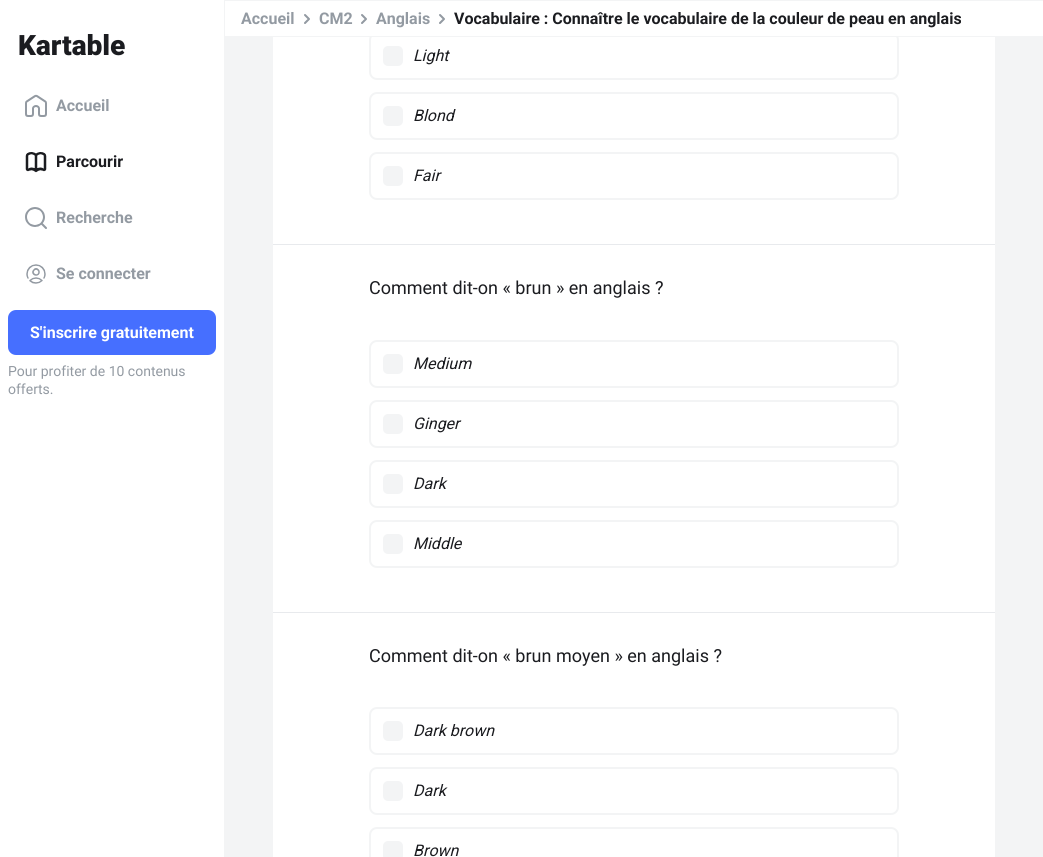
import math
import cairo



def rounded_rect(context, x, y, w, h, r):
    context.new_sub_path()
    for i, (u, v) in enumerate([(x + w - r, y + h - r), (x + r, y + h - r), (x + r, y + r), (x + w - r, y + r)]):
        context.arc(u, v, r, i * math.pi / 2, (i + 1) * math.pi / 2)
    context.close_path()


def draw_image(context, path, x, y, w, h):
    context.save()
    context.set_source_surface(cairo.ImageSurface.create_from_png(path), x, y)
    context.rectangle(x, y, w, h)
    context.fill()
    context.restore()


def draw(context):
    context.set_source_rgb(1, 1, 1)
    context.paint()
    context.set_source_rgb(243 / 255, 244 / 255, 245 / 255)
    context.rectangle(224, 0, 1, 857)
    context.fill()
    draw_image(context, "images/1.png", 19, 34, 106, 22)
    draw_image(context, "images/2.png", 25, 94, 22, 23)
    draw_image(context, "images/3.png", 25, 152, 22, 21)
    draw_image(context, "images/4.png", 25, 207, 22, 22)
    draw_image(context, "images/5.png", 26, 264, 20, 20)
    context.set_source_rgb(70 / 255, 111 / 255, 1)
    rounded_rect(context, 8, 310, 208, 45, 8)
    context.fill()
    context.set_source_rgb(243 / 255, 244 / 255, 245 / 255)
    context.rectangle(225, 37, 818, 820)
    context.fill()
    context.set_source_rgb(1, 1, 1)
    context.rectangle(273, 37, 722, 820)
    context.fill()
    context.set_source_rgb(243 / 255, 244 / 255, 245 / 255)
    rounded_rect(context, 384, 47, 18, 18, 4)
    context.fill_preserve()
    context.stroke()
    rounded_rect(context, 370, 33, 528, 46, 7)
    context.stroke()
    context.set_source_rgb(1, 1, 1)
    context.rectangle(370, 32, 528, 4)
    context.fill()
    context.set_source_rgb(243 / 255, 244 / 255, 245 / 255)
    context.rectangle(225, 0, 818, 1)
    context.fill()
    context.rectangle(225, 36, 818, 1)
    context.fill()
    draw_image(context, "images/6.png", 304, 14, 6, 10)
    draw_image(context, "images/6.png", 361, 14, 6, 10)
    draw_image(context, "images/6.png", 439, 14, 6, 10)
    context.set_source_rgb(232 / 255, 234 / 255, 237 / 255)
    context.rectangle(273, 244, 722, 1)
    context.fill()
    context.set_source_rgb(243 / 255, 244 / 255, 245 / 255)
    rounded_rect(context, 384, 107, 18, 18, 4)
    context.fill_preserve()
    context.stroke()
    rounded_rect(context, 370, 93, 528, 46, 7)
    context.stroke()
    rounded_rect(context, 384, 167, 18, 18, 4)
    context.fill_preserve()
    context.stroke()
    rounded_rect(context, 370, 153, 528, 46, 7)
    context.stroke()
    context.set_source_rgb(232 / 255, 234 / 255, 237 / 255)
    context.rectangle(273, 612, 722, 1)
    context.fill()
    context.set_source_rgb(243 / 255, 244 / 255, 245 / 255)
    rounded_rect(context, 384, 355, 18, 18, 4)
    context.fill_preserve()
    context.stroke()
    rounded_rect(context, 370, 341, 528, 46, 7)
    context.stroke()
    rounded_rect(context, 384, 415, 18, 18, 4)
    context.fill_preserve()
    context.stroke()
    rounded_rect(context, 370, 401, 528, 46, 7)
    context.stroke()
    rounded_rect(context, 384, 475, 18, 18, 4)
    context.fill_preserve()
    context.stroke()
    rounded_rect(context, 370, 461, 528, 46, 7)
    context.stroke()
    rounded_rect(context, 384, 535, 18, 18, 4)
    context.fill_preserve()
    context.stroke()
    rounded_rect(context, 370, 521, 528, 46, 7)
    context.stroke()
    rounded_rect(context, 384, 722, 18, 18, 4)
    context.fill_preserve()
    context.stroke()
    rounded_rect(context, 370, 708, 528, 46, 7)
    context.stroke()
    rounded_rect(context, 384, 782, 18, 18, 4)
    context.fill_preserve()
    context.stroke()
    rounded_rect(context, 370, 768, 528, 46, 7)
    context.stroke()
    rounded_rect(context, 384, 842, 18, 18, 4)
    context.fill_preserve()
    context.stroke()
    rounded_rect(context, 370, 828, 528, 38, 7)
    context.stroke()
    context.select_font_face("Roboto", cairo.FontSlant.NORMAL, cairo.FontWeight.BOLD)
    context.set_font_size(16)
    context.set_source_rgb(147 / 255, 154 / 255, 162 / 255)
    context.move_to(56, 111)
    context.show_text("Accueil")
    context.set_source_rgb(27 / 255, 28 / 255, 32 / 255)
    context.move_to(56, 167)
    context.show_text("Parcourir")
    context.set_source_rgb(147 / 255, 154 / 255, 162 / 255)
    context.move_to(56, 223)
    context.show_text("Recherche")
    context.move_to(56, 279)
    context.show_text("Se connecter")
    context.set_source_rgb(1, 1, 1)
    context.move_to(30, 338)
    context.show_text("S'inscrire gratuitement")
    context.select_font_face("Roboto")
    context.set_font_size(14)
    context.set_source_rgb(147 / 255, 154 / 255, 162 / 255)
    context.move_to(8, 376)
    context.show_text("Pour profiter de 10 contenus")
    context.move_to(8, 394)
    context.show_text("offerts.")
    context.select_font_face("Roboto", cairo.FontSlant.NORMAL, cairo.FontWeight.BOLD)
    context.set_font_size(16)
    context.move_to(241, 24)
    context.show_text("Accueil")
    context.move_to(319, 24)
    context.show_text("CM2")
    context.move_to(376, 24)
    context.show_text("Anglais")
    context.set_source_rgb(27 / 255, 28 / 255, 32 / 255)
    context.move_to(454, 24)
    context.show_text("Vocabulaire : Connaître le vocabulaire de la couleur de peau en anglais")
    context.select_font_face("Roboto", cairo.FontSlant.ITALIC)
    context.move_to(413, 61)
    context.show_text("Light")
    context.move_to(413, 121)
    context.show_text("Blond")
    context.move_to(413, 181)
    context.show_text("Fair")
    context.select_font_face("Roboto")
    context.set_font_size(18)
    context.move_to(369, 294)
    context.show_text("Comment dit-on « brun » en anglais ?")
    context.select_font_face("Roboto", cairo.FontSlant.ITALIC)
    context.set_font_size(16)
    context.move_to(413, 369)
    context.show_text("Medium")
    context.move_to(413, 429)
    context.show_text("Ginger")
    context.move_to(413, 489)
    context.show_text("Dark")
    context.move_to(413, 549)
    context.show_text("Middle")
    context.select_font_face("Roboto")
    context.set_font_size(18)
    context.move_to(369, 662)
    context.show_text("Comment dit-on « brun moyen » en anglais ?")
    context.select_font_face("Roboto", cairo.FontSlant.ITALIC)
    context.set_font_size(16)
    context.move_to(413, 736)
    context.show_text("Dark brown")
    context.move_to(413, 796)
    context.show_text("Dark")
    context.move_to(413, 856)
    context.show_text("Brown")


surface = cairo.ImageSurface(cairo.Format.RGB24, 1043, 857)
context = cairo.Context(surface)
options = cairo.FontOptions()
options.set_hint_metrics(cairo.HintMetrics.OFF)
options.set_hint_style(cairo.HintStyle.NONE)
context.set_font_options(options)
context.set_miter_limit(4)
draw(context)
surface.write_to_png("out.png")
